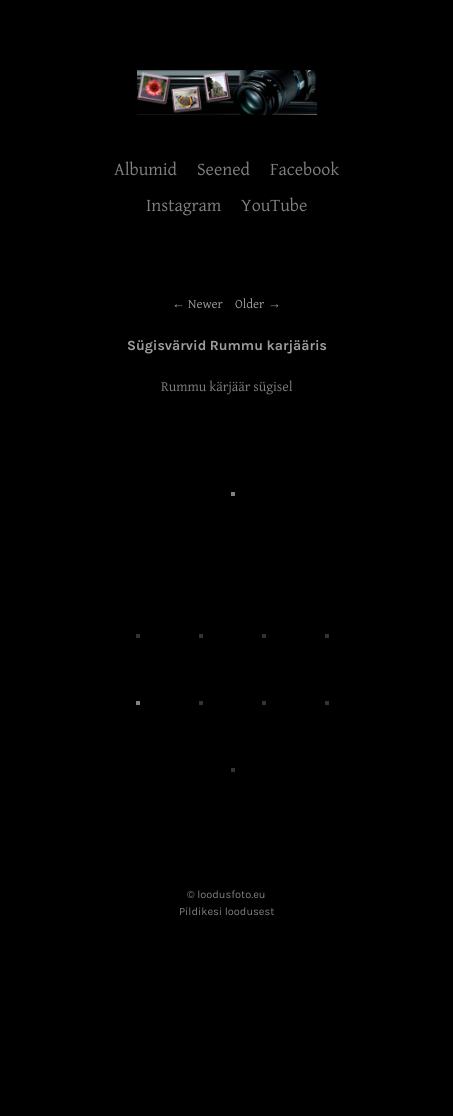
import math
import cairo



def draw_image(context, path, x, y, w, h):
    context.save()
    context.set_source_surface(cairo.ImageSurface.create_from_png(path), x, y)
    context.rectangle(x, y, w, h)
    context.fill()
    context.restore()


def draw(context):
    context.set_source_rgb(0, 0, 0)
    context.paint()
    draw_image(context, "images/1.png", 137, 70, 180, 45)
    context.set_source_rgb(129 / 255, 129 / 255, 129 / 255)
    context.rectangle(231, 492, 4, 4)
    context.fill()
    context.set_source_rgb(51 / 255, 51 / 255, 51 / 255)
    context.rectangle(136, 634, 4, 4)
    context.fill()
    context.rectangle(199, 634, 4, 4)
    context.fill()
    context.rectangle(262, 634, 4, 4)
    context.fill()
    context.rectangle(325, 634, 4, 4)
    context.fill()
    context.set_source_rgb(129 / 255, 129 / 255, 129 / 255)
    context.rectangle(136, 701, 4, 4)
    context.fill()
    context.set_source_rgb(51 / 255, 51 / 255, 51 / 255)
    context.rectangle(199, 701, 4, 4)
    context.fill()
    context.rectangle(262, 701, 4, 4)
    context.fill()
    context.rectangle(325, 701, 4, 4)
    context.fill()
    context.rectangle(231, 768, 4, 4)
    context.fill()
    context.select_font_face("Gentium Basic")
    context.set_font_size(18)
    context.set_source_rgb(129 / 255, 129 / 255, 129 / 255)
    context.move_to(114, 175)
    context.show_text("Albumid")
    context.move_to(197, 175)
    context.show_text("Seened")
    context.move_to(270, 175)
    context.show_text("Facebook")
    context.move_to(146, 211)
    context.show_text("Instagram")
    context.move_to(241, 211)
    context.show_text("YouTube")
    context.select_font_face("Liberation Serif")
    context.set_font_size(13)
    context.set_source_rgb(158 / 255, 158 / 255, 158 / 255)
    context.move_to(172, 308)
    context.show_text("←")
    context.select_font_face("Gentium Basic")
    context.move_to(188, 308)
    context.show_text("Newer")
    context.move_to(235, 308)
    context.show_text("Older")
    context.select_font_face("Liberation Serif")
    context.move_to(268, 308)
    context.show_text("→")
    context.select_font_face("Karla", cairo.FontSlant.NORMAL, cairo.FontWeight.BOLD)
    context.set_font_size(14)
    context.move_to(127, 350)
    context.show_text("Sügisvärvid Rummu karjääris")
    context.select_font_face("Gentium Basic")
    context.set_source_rgb(129 / 255, 129 / 255, 129 / 255)
    context.move_to(161, 391)
    context.show_text("Rummu kärjäär sügisel")
    context.select_font_face("Karla")
    context.set_font_size(11)
    context.move_to(187, 898)
    context.show_text("© loodusfoto.eu")
    context.move_to(179, 915)
    context.show_text("Pildikesi loodusest")


surface = cairo.ImageSurface(cairo.Format.RGB24, 453, 1116)
context = cairo.Context(surface)
options = cairo.FontOptions()
options.set_hint_metrics(cairo.HintMetrics.OFF)
options.set_hint_style(cairo.HintStyle.NONE)
context.set_font_options(options)
context.set_miter_limit(4)
draw(context)
surface.write_to_png("out.png")
